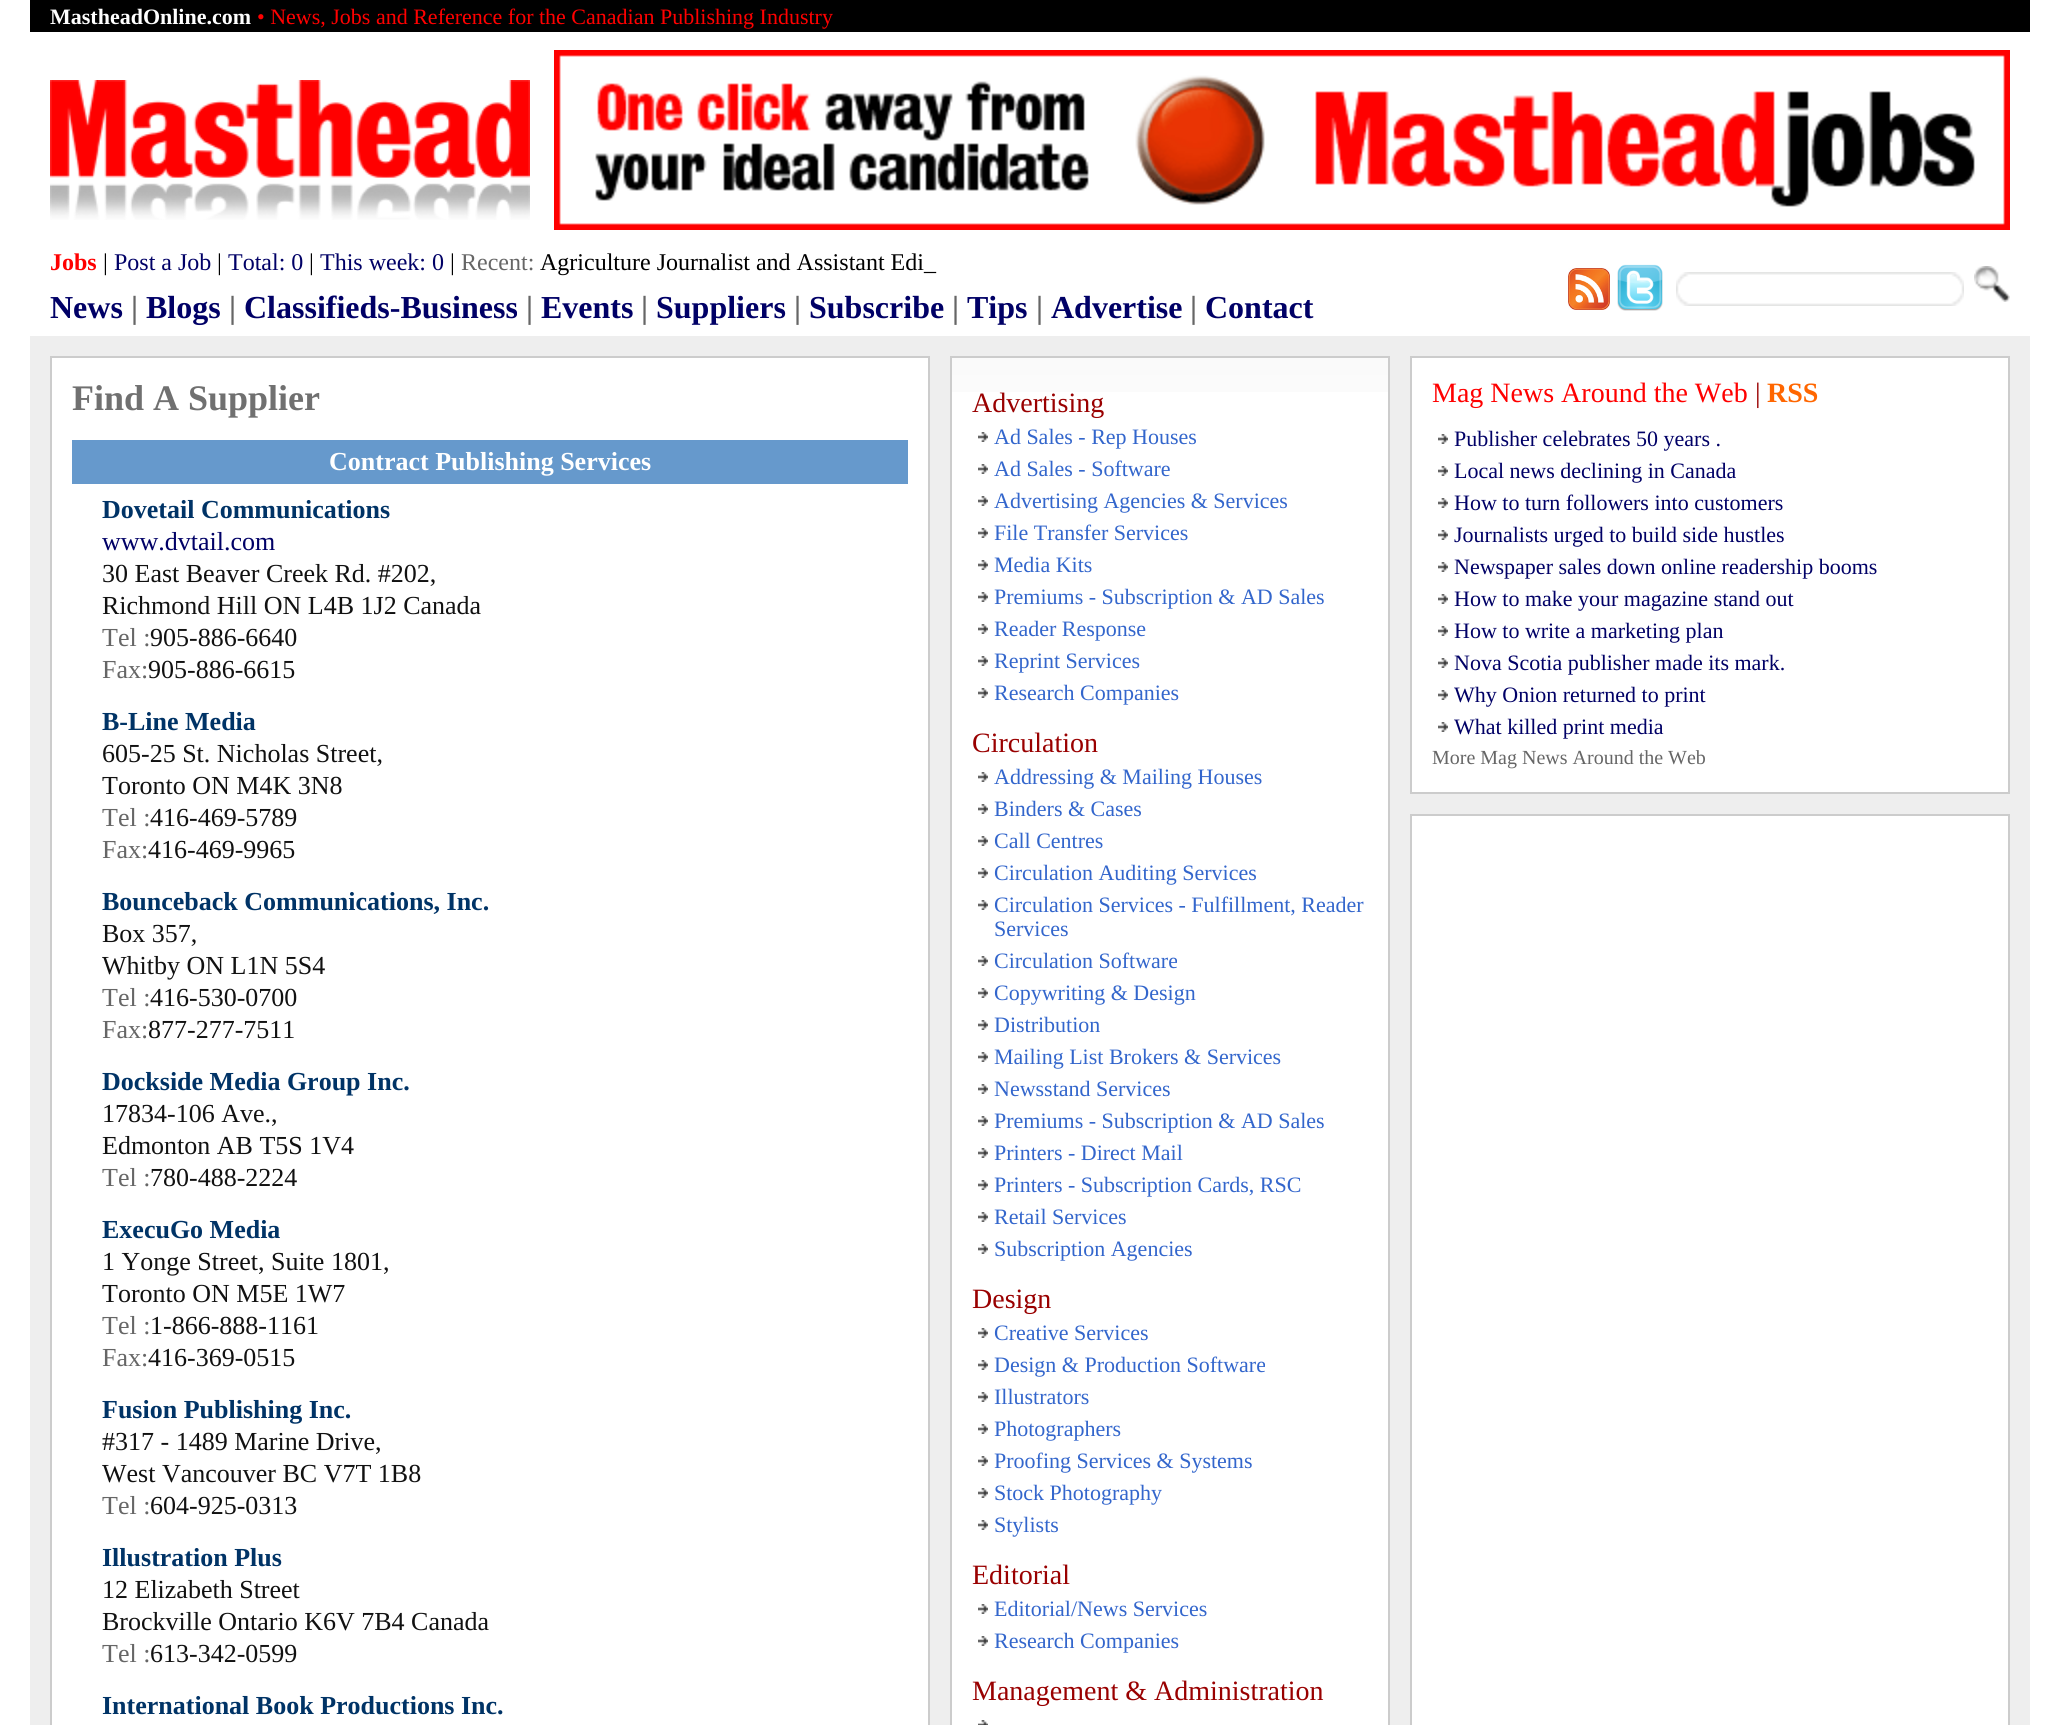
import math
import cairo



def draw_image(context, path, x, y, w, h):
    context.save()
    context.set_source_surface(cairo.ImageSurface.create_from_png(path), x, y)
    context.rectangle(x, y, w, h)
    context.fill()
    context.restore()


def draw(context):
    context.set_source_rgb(1, 1, 1)
    context.paint()
    context.set_source_rgb(0, 0, 0)
    context.rectangle(30, 0, 2000, 32)
    context.fill()
    draw_image(context, "images/1.png", 50, 80, 480, 140)
    draw_image(context, "images/2.png", 554, 50, 1456, 180)
    draw_image(context, "images/3.png", 1568, 268, 42, 42)
    draw_image(context, "images/4.png", 1617, 264, 46, 47)
    draw_image(context, "images/5.png", 1676, 272, 288, 34)
    draw_image(context, "images/6.png", 1974, 266, 36, 36)
    context.set_source_rgb(238 / 255, 238 / 255, 238 / 255)
    context.rectangle(30, 336, 2000, 1389)
    context.fill()
    context.set_source_rgb(1, 1, 1)
    context.rectangle(51, 357, 878, 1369)
    context.fill_preserve()
    context.set_source_rgb(204 / 255, 204 / 255, 204 / 255)
    context.stroke()
    context.set_source_rgb(102 / 255, 153 / 255, 204 / 255)
    context.rectangle(72, 440, 836, 44)
    context.fill()
    context.set_source_rgb(1, 1, 1)
    context.rectangle(952, 360, 436, 1365)
    context.fill()
    draw_image(context, "images/7.png", 952, 358, 436, 34)
    context.rectangle(951, 357, 438, 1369)
    context.set_source_rgb(204 / 255, 204 / 255, 204 / 255)
    context.stroke()
    draw_image(context, "images/8.png", 978, 432, 10, 10)
    draw_image(context, "images/8.png", 978, 464, 10, 10)
    draw_image(context, "images/8.png", 978, 496, 10, 10)
    draw_image(context, "images/8.png", 978, 528, 10, 10)
    draw_image(context, "images/8.png", 978, 560, 10, 10)
    draw_image(context, "images/8.png", 978, 592, 10, 10)
    draw_image(context, "images/8.png", 978, 624, 10, 10)
    draw_image(context, "images/8.png", 978, 656, 10, 10)
    draw_image(context, "images/8.png", 978, 688, 10, 10)
    draw_image(context, "images/8.png", 978, 772, 10, 10)
    draw_image(context, "images/8.png", 978, 804, 10, 10)
    draw_image(context, "images/8.png", 978, 836, 10, 10)
    draw_image(context, "images/8.png", 978, 868, 10, 10)
    draw_image(context, "images/8.png", 978, 900, 10, 10)
    draw_image(context, "images/8.png", 978, 956, 10, 10)
    draw_image(context, "images/8.png", 978, 988, 10, 10)
    draw_image(context, "images/8.png", 978, 1020, 10, 10)
    draw_image(context, "images/8.png", 978, 1052, 10, 10)
    draw_image(context, "images/8.png", 978, 1084, 10, 10)
    draw_image(context, "images/8.png", 978, 1116, 10, 10)
    draw_image(context, "images/8.png", 978, 1148, 10, 10)
    draw_image(context, "images/8.png", 978, 1180, 10, 10)
    draw_image(context, "images/8.png", 978, 1212, 10, 10)
    draw_image(context, "images/8.png", 978, 1244, 10, 10)
    draw_image(context, "images/8.png", 978, 1328, 10, 10)
    draw_image(context, "images/8.png", 978, 1360, 10, 10)
    draw_image(context, "images/8.png", 978, 1392, 10, 10)
    draw_image(context, "images/8.png", 978, 1424, 10, 10)
    draw_image(context, "images/8.png", 978, 1456, 10, 10)
    draw_image(context, "images/8.png", 978, 1488, 10, 10)
    draw_image(context, "images/8.png", 978, 1520, 10, 10)
    draw_image(context, "images/8.png", 978, 1604, 10, 10)
    draw_image(context, "images/8.png", 978, 1636, 10, 10)
    draw_image(context, "images/9.png", 978, 1720, 10, 5)
    context.set_source_rgb(1, 1, 1)
    context.rectangle(1411, 357, 598, 436)
    context.fill_preserve()
    context.set_source_rgb(204 / 255, 204 / 255, 204 / 255)
    context.stroke()
    draw_image(context, "images/8.png", 1438, 434, 10, 10)
    draw_image(context, "images/8.png", 1438, 466, 10, 10)
    draw_image(context, "images/8.png", 1438, 498, 10, 10)
    draw_image(context, "images/8.png", 1438, 530, 10, 10)
    draw_image(context, "images/8.png", 1438, 562, 10, 10)
    draw_image(context, "images/8.png", 1438, 594, 10, 10)
    draw_image(context, "images/8.png", 1438, 626, 10, 10)
    draw_image(context, "images/8.png", 1438, 658, 10, 10)
    draw_image(context, "images/8.png", 1438, 690, 10, 10)
    draw_image(context, "images/8.png", 1438, 722, 10, 10)
    context.set_source_rgb(1, 1, 1)
    context.rectangle(1411, 815, 598, 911)
    context.fill_preserve()
    context.set_source_rgb(204 / 255, 204 / 255, 204 / 255)
    context.stroke()
    context.select_font_face("Liberation Serif", cairo.FontSlant.NORMAL, cairo.FontWeight.BOLD)
    context.set_font_size(22)
    context.set_source_rgb(1, 1, 1)
    context.move_to(50, 24)
    context.show_text("MastheadOnline.com")
    context.select_font_face("Liberation Serif")
    context.set_source_rgb(1, 0, 0)
    context.move_to(257, 24)
    context.show_text("• News, Jobs and Reference for the Canadian Publishing Industry")
    context.select_font_face("Liberation Serif", cairo.FontSlant.NORMAL, cairo.FontWeight.BOLD)
    context.set_font_size(24)
    context.move_to(50, 270)
    context.show_text("Jobs")
    context.select_font_face("Liberation Serif")
    context.set_source_rgb(0, 0, 0)
    context.move_to(103, 270)
    context.show_text("|")
    context.set_source_rgb(0, 0, 102 / 255)
    context.move_to(114, 270)
    context.show_text("Post a Job")
    context.set_source_rgb(0, 0, 0)
    context.move_to(217, 270)
    context.show_text("|")
    context.set_source_rgb(0, 0, 102 / 255)
    context.move_to(228, 270)
    context.show_text("Total: 0")
    context.set_source_rgb(0, 0, 0)
    context.move_to(309, 270)
    context.show_text("|")
    context.set_source_rgb(0, 0, 102 / 255)
    context.move_to(320, 270)
    context.show_text("This week: 0")
    context.set_source_rgb(0, 0, 0)
    context.move_to(450, 270)
    context.show_text("|")
    context.set_source_rgb(102 / 255, 102 / 255, 102 / 255)
    context.move_to(461, 270)
    context.show_text("Recent:")
    context.set_source_rgb(0, 0, 0)
    context.move_to(540, 270)
    context.show_text("Agriculture Journalist and Assistant Edi_")
    context.select_font_face("Liberation Serif", cairo.FontSlant.NORMAL, cairo.FontWeight.BOLD)
    context.set_font_size(32)
    context.set_source_rgb(0, 0, 102 / 255)
    context.move_to(50, 318)
    context.show_text("News")
    context.set_source_rgb(102 / 255, 102 / 255, 102 / 255)
    context.move_to(131, 318)
    context.show_text("|")
    context.set_source_rgb(0, 0, 102 / 255)
    context.move_to(146, 318)
    context.show_text("Blogs")
    context.set_source_rgb(102 / 255, 102 / 255, 102 / 255)
    context.move_to(229, 318)
    context.show_text("|")
    context.set_source_rgb(0, 0, 102 / 255)
    context.move_to(244, 318)
    context.show_text("Classifieds-Business")
    context.set_source_rgb(102 / 255, 102 / 255, 102 / 255)
    context.move_to(526, 318)
    context.show_text("|")
    context.set_source_rgb(0, 0, 102 / 255)
    context.move_to(541, 318)
    context.show_text("Events")
    context.set_source_rgb(102 / 255, 102 / 255, 102 / 255)
    context.move_to(641, 318)
    context.show_text("|")
    context.set_source_rgb(0, 0, 102 / 255)
    context.move_to(656, 318)
    context.show_text("Suppliers")
    context.set_source_rgb(102 / 255, 102 / 255, 102 / 255)
    context.move_to(794, 318)
    context.show_text("|")
    context.set_source_rgb(0, 0, 102 / 255)
    context.move_to(809, 318)
    context.show_text("Subscribe")
    context.set_source_rgb(102 / 255, 102 / 255, 102 / 255)
    context.move_to(952, 318)
    context.show_text("|")
    context.set_source_rgb(0, 0, 102 / 255)
    context.move_to(967, 318)
    context.show_text("Tips")
    context.set_source_rgb(102 / 255, 102 / 255, 102 / 255)
    context.move_to(1036, 318)
    context.show_text("|")
    context.set_source_rgb(0, 0, 102 / 255)
    context.move_to(1051, 318)
    context.show_text("Advertise")
    context.set_source_rgb(102 / 255, 102 / 255, 102 / 255)
    context.move_to(1190, 318)
    context.show_text("|")
    context.set_source_rgb(0, 0, 102 / 255)
    context.move_to(1205, 318)
    context.show_text("Contact")
    context.set_font_size(36)
    context.set_source_rgb(112 / 255, 112 / 255, 112 / 255)
    context.move_to(72, 410)
    context.show_text("Find A Supplier")
    context.set_font_size(26)
    context.set_source_rgb(1, 1, 1)
    context.move_to(329, 470)
    context.show_text("Contract Publishing Services")
    context.set_source_rgb(0, 51 / 255, 102 / 255)
    context.move_to(102, 518)
    context.show_text("Dovetail Communications")
    context.select_font_face("Liberation Serif")
    context.set_source_rgb(0, 0, 102 / 255)
    context.move_to(102, 550)
    context.show_text("www.dvtail.com")
    context.set_source_rgb(17 / 255, 17 / 255, 17 / 255)
    context.move_to(102, 582)
    context.show_text("30 East Beaver Creek Rd. #202,")
    context.move_to(102, 614)
    context.show_text("Richmond Hill ON L4B 1J2 Canada")
    context.set_source_rgb(102 / 255, 102 / 255, 102 / 255)
    context.move_to(102, 646)
    context.show_text("Tel :")
    context.set_source_rgb(17 / 255, 17 / 255, 17 / 255)
    context.move_to(150, 646)
    context.show_text("905-886-6640")
    context.set_source_rgb(102 / 255, 102 / 255, 102 / 255)
    context.move_to(102, 678)
    context.show_text("Fax:")
    context.set_source_rgb(17 / 255, 17 / 255, 17 / 255)
    context.move_to(148, 678)
    context.show_text("905-886-6615")
    context.select_font_face("Liberation Serif", cairo.FontSlant.NORMAL, cairo.FontWeight.BOLD)
    context.set_source_rgb(0, 51 / 255, 102 / 255)
    context.move_to(102, 730)
    context.show_text("B-Line Media")
    context.select_font_face("Liberation Serif")
    context.set_source_rgb(17 / 255, 17 / 255, 17 / 255)
    context.move_to(102, 762)
    context.show_text("605-25 St. Nicholas Street,")
    context.move_to(102, 794)
    context.show_text("Toronto ON M4K 3N8")
    context.set_source_rgb(102 / 255, 102 / 255, 102 / 255)
    context.move_to(102, 826)
    context.show_text("Tel :")
    context.set_source_rgb(17 / 255, 17 / 255, 17 / 255)
    context.move_to(150, 826)
    context.show_text("416-469-5789")
    context.set_source_rgb(102 / 255, 102 / 255, 102 / 255)
    context.move_to(102, 858)
    context.show_text("Fax:")
    context.set_source_rgb(17 / 255, 17 / 255, 17 / 255)
    context.move_to(148, 858)
    context.show_text("416-469-9965")
    context.select_font_face("Liberation Serif", cairo.FontSlant.NORMAL, cairo.FontWeight.BOLD)
    context.set_source_rgb(0, 51 / 255, 102 / 255)
    context.move_to(102, 910)
    context.show_text("Bounceback Communications, Inc.")
    context.select_font_face("Liberation Serif")
    context.set_source_rgb(17 / 255, 17 / 255, 17 / 255)
    context.move_to(102, 942)
    context.show_text("Box 357,")
    context.move_to(102, 974)
    context.show_text("Whitby ON L1N 5S4")
    context.set_source_rgb(102 / 255, 102 / 255, 102 / 255)
    context.move_to(102, 1006)
    context.show_text("Tel :")
    context.set_source_rgb(17 / 255, 17 / 255, 17 / 255)
    context.move_to(150, 1006)
    context.show_text("416-530-0700")
    context.set_source_rgb(102 / 255, 102 / 255, 102 / 255)
    context.move_to(102, 1038)
    context.show_text("Fax:")
    context.set_source_rgb(17 / 255, 17 / 255, 17 / 255)
    context.move_to(148, 1038)
    context.show_text("877-277-7511")
    context.select_font_face("Liberation Serif", cairo.FontSlant.NORMAL, cairo.FontWeight.BOLD)
    context.set_source_rgb(0, 51 / 255, 102 / 255)
    context.move_to(102, 1090)
    context.show_text("Dockside Media Group Inc.")
    context.select_font_face("Liberation Serif")
    context.set_source_rgb(17 / 255, 17 / 255, 17 / 255)
    context.move_to(102, 1122)
    context.show_text("17834-106 Ave.,")
    context.move_to(102, 1154)
    context.show_text("Edmonton AB T5S 1V4")
    context.set_source_rgb(102 / 255, 102 / 255, 102 / 255)
    context.move_to(102, 1186)
    context.show_text("Tel :")
    context.set_source_rgb(17 / 255, 17 / 255, 17 / 255)
    context.move_to(150, 1186)
    context.show_text("780-488-2224")
    context.select_font_face("Liberation Serif", cairo.FontSlant.NORMAL, cairo.FontWeight.BOLD)
    context.set_source_rgb(0, 51 / 255, 102 / 255)
    context.move_to(102, 1238)
    context.show_text("ExecuGo Media")
    context.select_font_face("Liberation Serif")
    context.set_source_rgb(17 / 255, 17 / 255, 17 / 255)
    context.move_to(102, 1270)
    context.show_text("1 Yonge Street, Suite 1801,")
    context.move_to(102, 1302)
    context.show_text("Toronto ON M5E 1W7")
    context.set_source_rgb(102 / 255, 102 / 255, 102 / 255)
    context.move_to(102, 1334)
    context.show_text("Tel :")
    context.set_source_rgb(17 / 255, 17 / 255, 17 / 255)
    context.move_to(150, 1334)
    context.show_text("1-866-888-1161")
    context.set_source_rgb(102 / 255, 102 / 255, 102 / 255)
    context.move_to(102, 1366)
    context.show_text("Fax:")
    context.set_source_rgb(17 / 255, 17 / 255, 17 / 255)
    context.move_to(148, 1366)
    context.show_text("416-369-0515")
    context.select_font_face("Liberation Serif", cairo.FontSlant.NORMAL, cairo.FontWeight.BOLD)
    context.set_source_rgb(0, 51 / 255, 102 / 255)
    context.move_to(102, 1418)
    context.show_text("Fusion Publishing Inc.")
    context.select_font_face("Liberation Serif")
    context.set_source_rgb(17 / 255, 17 / 255, 17 / 255)
    context.move_to(102, 1450)
    context.show_text("#317 - 1489 Marine Drive,")
    context.move_to(102, 1482)
    context.show_text("West Vancouver BC V7T 1B8")
    context.set_source_rgb(102 / 255, 102 / 255, 102 / 255)
    context.move_to(102, 1514)
    context.show_text("Tel :")
    context.set_source_rgb(17 / 255, 17 / 255, 17 / 255)
    context.move_to(150, 1514)
    context.show_text("604-925-0313")
    context.select_font_face("Liberation Serif", cairo.FontSlant.NORMAL, cairo.FontWeight.BOLD)
    context.set_source_rgb(0, 51 / 255, 102 / 255)
    context.move_to(102, 1566)
    context.show_text("Illustration Plus")
    context.select_font_face("Liberation Serif")
    context.set_source_rgb(17 / 255, 17 / 255, 17 / 255)
    context.move_to(102, 1598)
    context.show_text("12 Elizabeth Street")
    context.move_to(102, 1630)
    context.show_text("Brockville Ontario K6V 7B4 Canada")
    context.set_source_rgb(102 / 255, 102 / 255, 102 / 255)
    context.move_to(102, 1662)
    context.show_text("Tel :")
    context.set_source_rgb(17 / 255, 17 / 255, 17 / 255)
    context.move_to(150, 1662)
    context.show_text("613-342-0599")
    context.select_font_face("Liberation Serif", cairo.FontSlant.NORMAL, cairo.FontWeight.BOLD)
    context.set_source_rgb(0, 51 / 255, 102 / 255)
    context.move_to(102, 1714)
    context.show_text("International Book Productions Inc.")
    context.select_font_face("Liberation Serif")
    context.set_font_size(28)
    context.set_source_rgb(153 / 255, 0, 0)
    context.move_to(972, 412)
    context.show_text("Advertising")
    context.set_font_size(22)
    context.set_source_rgb(51 / 255, 102 / 255, 204 / 255)
    context.move_to(994, 444)
    context.show_text("Ad Sales - Rep Houses")
    context.move_to(994, 476)
    context.show_text("Ad Sales - Software")
    context.move_to(994, 508)
    context.show_text("Advertising Agencies & Services")
    context.move_to(994, 540)
    context.show_text("File Transfer Services")
    context.move_to(994, 572)
    context.show_text("Media Kits")
    context.move_to(994, 604)
    context.show_text("Premiums - Subscription & AD Sales")
    context.move_to(994, 636)
    context.show_text("Reader Response")
    context.move_to(994, 668)
    context.show_text("Reprint Services")
    context.move_to(994, 700)
    context.show_text("Research Companies")
    context.set_font_size(28)
    context.set_source_rgb(153 / 255, 0, 0)
    context.move_to(972, 752)
    context.show_text("Circulation")
    context.set_font_size(22)
    context.set_source_rgb(51 / 255, 102 / 255, 204 / 255)
    context.move_to(994, 784)
    context.show_text("Addressing & Mailing Houses")
    context.move_to(994, 816)
    context.show_text("Binders & Cases")
    context.move_to(994, 848)
    context.show_text("Call Centres")
    context.move_to(994, 880)
    context.show_text("Circulation Auditing Services")
    context.move_to(994, 912)
    context.show_text("Circulation Services - Fulfillment, Reader")
    context.move_to(994, 936)
    context.show_text("Services")
    context.move_to(994, 968)
    context.show_text("Circulation Software")
    context.move_to(994, 1000)
    context.show_text("Copywriting & Design")
    context.move_to(994, 1032)
    context.show_text("Distribution")
    context.move_to(994, 1064)
    context.show_text("Mailing List Brokers & Services")
    context.move_to(994, 1096)
    context.show_text("Newsstand Services")
    context.move_to(994, 1128)
    context.show_text("Premiums - Subscription & AD Sales")
    context.move_to(994, 1160)
    context.show_text("Printers - Direct Mail")
    context.move_to(994, 1192)
    context.show_text("Printers - Subscription Cards, RSC")
    context.move_to(994, 1224)
    context.show_text("Retail Services")
    context.move_to(994, 1256)
    context.show_text("Subscription Agencies")
    context.set_font_size(28)
    context.set_source_rgb(153 / 255, 0, 0)
    context.move_to(972, 1308)
    context.show_text("Design")
    context.set_font_size(22)
    context.set_source_rgb(51 / 255, 102 / 255, 204 / 255)
    context.move_to(994, 1340)
    context.show_text("Creative Services")
    context.move_to(994, 1372)
    context.show_text("Design & Production Software")
    context.move_to(994, 1404)
    context.show_text("Illustrators")
    context.move_to(994, 1436)
    context.show_text("Photographers")
    context.move_to(994, 1468)
    context.show_text("Proofing Services & Systems")
    context.move_to(994, 1500)
    context.show_text("Stock Photography")
    context.move_to(994, 1532)
    context.show_text("Stylists")
    context.set_font_size(28)
    context.set_source_rgb(153 / 255, 0, 0)
    context.move_to(972, 1584)
    context.show_text("Editorial")
    context.set_font_size(22)
    context.set_source_rgb(51 / 255, 102 / 255, 204 / 255)
    context.move_to(994, 1616)
    context.show_text("Editorial/News Services")
    context.move_to(994, 1648)
    context.show_text("Research Companies")
    context.set_font_size(28)
    context.set_source_rgb(153 / 255, 0, 0)
    context.move_to(972, 1700)
    context.show_text("Management & Administration")
    context.set_source_rgb(1, 0, 0)
    context.move_to(1432, 402)
    context.show_text("Mag News Around the Web")
    context.set_source_rgb(153 / 255, 0, 0)
    context.move_to(1755, 402)
    context.show_text("|")
    context.select_font_face("Liberation Serif", cairo.FontSlant.NORMAL, cairo.FontWeight.BOLD)
    context.set_source_rgb(1, 102 / 255, 0)
    context.move_to(1767, 402)
    context.show_text("RSS")
    context.select_font_face("Liberation Serif")
    context.set_font_size(22)
    context.set_source_rgb(0, 0, 102 / 255)
    context.move_to(1454, 446)
    context.show_text("Publisher celebrates 50 years .")
    context.move_to(1454, 478)
    context.show_text("Local news declining in Canada")
    context.move_to(1454, 510)
    context.show_text("How to turn followers into customers")
    context.move_to(1454, 542)
    context.show_text("Journalists urged to build side hustles")
    context.move_to(1454, 574)
    context.show_text("Newspaper sales down online readership booms")
    context.move_to(1454, 606)
    context.show_text("How to make your magazine stand out")
    context.move_to(1454, 638)
    context.show_text("How to write a marketing plan")
    context.move_to(1454, 670)
    context.show_text("Nova Scotia publisher made its mark.")
    context.move_to(1454, 702)
    context.show_text("Why Onion returned to print")
    context.move_to(1454, 734)
    context.show_text("What killed print media")
    context.set_font_size(20)
    context.set_source_rgb(102 / 255, 102 / 255, 102 / 255)
    context.move_to(1432, 764)
    context.show_text("More Mag News Around the Web")


surface = cairo.ImageSurface(cairo.Format.RGB24, 2059, 1725)
context = cairo.Context(surface)
options = cairo.FontOptions()
options.set_hint_metrics(cairo.HintMetrics.OFF)
options.set_hint_style(cairo.HintStyle.NONE)
context.set_font_options(options)
context.set_miter_limit(4)
draw(context)
surface.write_to_png("out.png")
